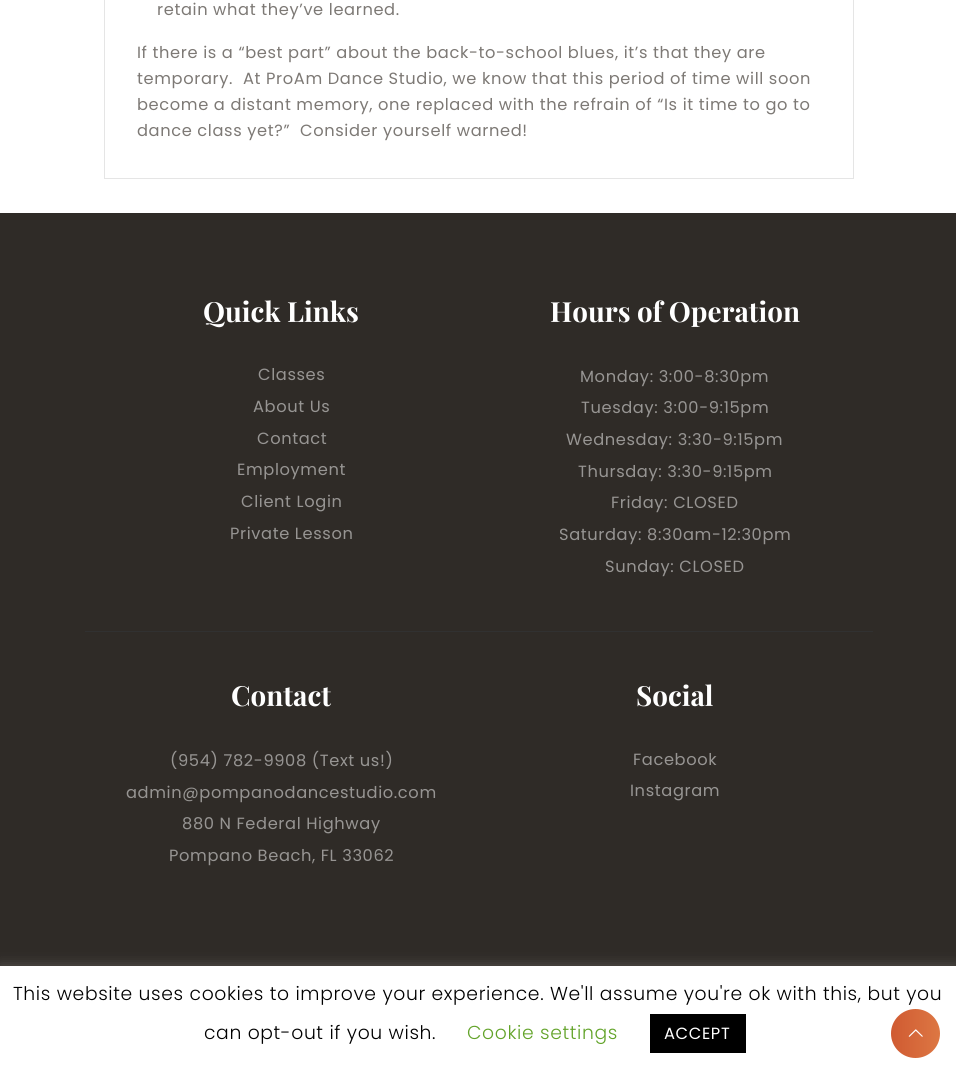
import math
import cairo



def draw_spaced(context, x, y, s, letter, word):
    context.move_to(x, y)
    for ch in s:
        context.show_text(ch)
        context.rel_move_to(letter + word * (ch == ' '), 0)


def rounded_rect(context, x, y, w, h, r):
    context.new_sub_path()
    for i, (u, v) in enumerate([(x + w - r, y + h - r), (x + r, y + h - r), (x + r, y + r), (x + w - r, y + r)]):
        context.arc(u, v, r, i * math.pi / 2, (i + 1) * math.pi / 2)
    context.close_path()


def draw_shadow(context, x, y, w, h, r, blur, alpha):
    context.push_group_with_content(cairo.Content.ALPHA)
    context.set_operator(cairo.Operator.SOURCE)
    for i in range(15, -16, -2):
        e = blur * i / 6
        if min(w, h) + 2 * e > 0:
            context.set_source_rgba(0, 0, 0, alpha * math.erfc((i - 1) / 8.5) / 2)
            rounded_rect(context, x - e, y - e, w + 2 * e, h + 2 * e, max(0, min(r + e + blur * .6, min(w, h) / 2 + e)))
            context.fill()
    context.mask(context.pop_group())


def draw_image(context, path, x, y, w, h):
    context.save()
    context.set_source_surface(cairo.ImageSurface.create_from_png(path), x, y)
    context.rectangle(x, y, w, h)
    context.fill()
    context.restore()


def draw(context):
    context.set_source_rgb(1, 1, 1)
    context.paint()
    context.set_source_rgb(229 / 255, 229 / 255, 229 / 255)
    context.rectangle(853, 0, 1, 179)
    context.fill()
    context.rectangle(104, 178, 750, 1)
    context.fill()
    context.rectangle(104, 0, 1, 179)
    context.fill()
    context.set_source_rgb(47 / 255, 43 / 255, 39 / 255)
    context.rectangle(0, 213, 956, 753)
    context.fill()
    context.set_source_rgb(49 / 255, 49 / 255, 49 / 255)
    context.rectangle(85, 631, 788, 1)
    context.fill()
    context.set_source_rgb(172 / 255, 171 / 255, 171 / 255)
    draw_shadow(context, 0, 965, 956, 108, 0, 6, 0.3)
    context.set_source_rgb(1, 1, 1)
    context.rectangle(0, 966, 956, 107)
    context.fill()
    context.set_source_rgb(0, 0, 0)
    context.rectangle(650, 1014, 96, 39)
    context.fill()
    gradient = cairo.LinearGradient(838, 1033, 940, 1033)
    gradient.add_color_stop_rgba(0, 183 / 255, 183 / 255, 183 / 255, 1)
    gradient.add_color_stop_rgba(0.5, 115 / 255, 162 / 255, 160 / 255, 1)
    gradient.add_color_stop_rgba(0.5, 207 / 255, 89 / 255, 49 / 255, 1)
    gradient.add_color_stop_rgba(1, 221 / 255, 119 / 255, 67 / 255, 1)
    context.set_source(gradient)
    context.arc(915.5, 1033.5, 24.5, 0, 2 * math.pi)
    context.fill()
    draw_image(context, "images/1.png", 908, 1029, 15, 8)
    context.select_font_face("Poppins")
    context.set_font_size(16.25)
    context.set_source_rgb(125 / 255, 121 / 255, 117 / 255)
    draw_spaced(context, 157, 15, "retain what they’ve learned.", 0.62, 0)
    draw_spaced(context, 137, 58, "If there is a “best part” about the back-to-school blues, it’s that they are", 0.62, 0)
    draw_spaced(context, 137, 84, "temporary.", 0.62, 0)
    draw_spaced(context, 243, 84, "At ProAm Dance Studio, we know that this period of time will soon", 0.62, 0)
    draw_spaced(context, 137, 110, "become a distant memory, one replaced with the refrain of “Is it time to go to", 0.62, 0)
    draw_spaced(context, 137, 136, "dance class yet?”", 0.62, 0)
    draw_spaced(context, 300, 136, "Consider yourself warned!", 0.62, 0)
    context.select_font_face("Playfair Display", cairo.FontSlant.NORMAL, cairo.FontWeight.BOLD)
    context.set_font_size(27.75)
    context.set_source_rgb(1, 1, 1)
    context.move_to(203, 322)
    context.show_text("Quick Links")
    context.select_font_face("Poppins")
    context.set_font_size(16.25)
    context.set_source_rgb(151 / 255, 149 / 255, 147 / 255)
    draw_spaced(context, 258, 380, "Classes", 0.62, 0)
    draw_spaced(context, 253, 412, "About Us", 0.62, 0)
    draw_spaced(context, 257, 444, "Contact", 0.62, 0)
    draw_spaced(context, 237, 475, "Employment", 0.62, 0)
    draw_spaced(context, 241, 507, "Client Login", 0.62, 0)
    draw_spaced(context, 230, 539, "Private Lesson", 0.62, 0)
    context.select_font_face("Playfair Display", cairo.FontSlant.NORMAL, cairo.FontWeight.BOLD)
    context.set_font_size(27.75)
    context.set_source_rgb(1, 1, 1)
    context.move_to(550, 322)
    context.show_text("Hours of Operation")
    context.select_font_face("Poppins")
    context.set_font_size(16.25)
    context.set_source_rgb(151 / 255, 149 / 255, 147 / 255)
    draw_spaced(context, 580, 382, "Monday: 3:00-8:30pm", 0.62, 0)
    draw_spaced(context, 581, 413, "Tuesday: 3:00-9:15pm", 0.62, 0)
    draw_spaced(context, 566, 445, "Wednesday: 3:30-9:15pm", 0.62, 0)
    draw_spaced(context, 578, 477, "Thursday: 3:30-9:15pm", 0.62, 0)
    draw_spaced(context, 611, 508, "Friday: CLOSED", 0.62, 0)
    draw_spaced(context, 559, 540, "Saturday: 8:30am-12:30pm", 0.62, 0)
    draw_spaced(context, 605, 572, "Sunday: CLOSED", 0.62, 0)
    context.select_font_face("Playfair Display", cairo.FontSlant.NORMAL, cairo.FontWeight.BOLD)
    context.set_font_size(27.75)
    context.set_source_rgb(1, 1, 1)
    context.move_to(231, 706)
    context.show_text("Contact")
    context.select_font_face("Poppins")
    context.set_font_size(16.25)
    context.set_source_rgb(151 / 255, 149 / 255, 147 / 255)
    draw_spaced(context, 170, 766, "(954) 782-9908 (Text us!)", 0.62, 0)
    draw_spaced(context, 126, 798, "admin@pompanodancestudio.com", 0.62, 0)
    draw_spaced(context, 182, 829, "880 N Federal Highway", 0.62, 0)
    draw_spaced(context, 169, 861, "Pompano Beach, FL 33062", 0.62, 0)
    context.select_font_face("Playfair Display", cairo.FontSlant.NORMAL, cairo.FontWeight.BOLD)
    context.set_font_size(27.75)
    context.set_source_rgb(1, 1, 1)
    context.move_to(636, 706)
    context.show_text("Social")
    context.select_font_face("Poppins")
    context.set_font_size(16.25)
    context.set_source_rgb(151 / 255, 149 / 255, 147 / 255)
    draw_spaced(context, 633, 765, "Facebook", 0.62, 0)
    draw_spaced(context, 630, 796, "Instagram", 0.62, 0)
    context.select_font_face("Poppins Light")
    context.set_font_size(18.75)
    context.set_source_rgb(0, 0, 0)
    draw_spaced(context, 13, 1000, "This website uses cookies to improve your experience. We'll assume you're ok with this, but you", 0.62, 0)
    draw_spaced(context, 204, 1039, "can opt-out if you wish.", 0.62, 0)
    context.set_source_rgb(98 / 255, 163 / 255, 41 / 255)
    draw_spaced(context, 467, 1039, "Cookie settings", 0.62, 0)
    context.select_font_face("Poppins")
    context.set_font_size(16.25)
    context.set_source_rgb(1, 1, 1)
    draw_spaced(context, 664, 1039, "ACCEPT", 0.62, 0)


surface = cairo.ImageSurface(cairo.Format.RGB24, 956, 1073)
context = cairo.Context(surface)
options = cairo.FontOptions()
options.set_hint_metrics(cairo.HintMetrics.OFF)
options.set_hint_style(cairo.HintStyle.NONE)
context.set_font_options(options)
context.set_miter_limit(4)
draw(context)
surface.write_to_png("out.png")
